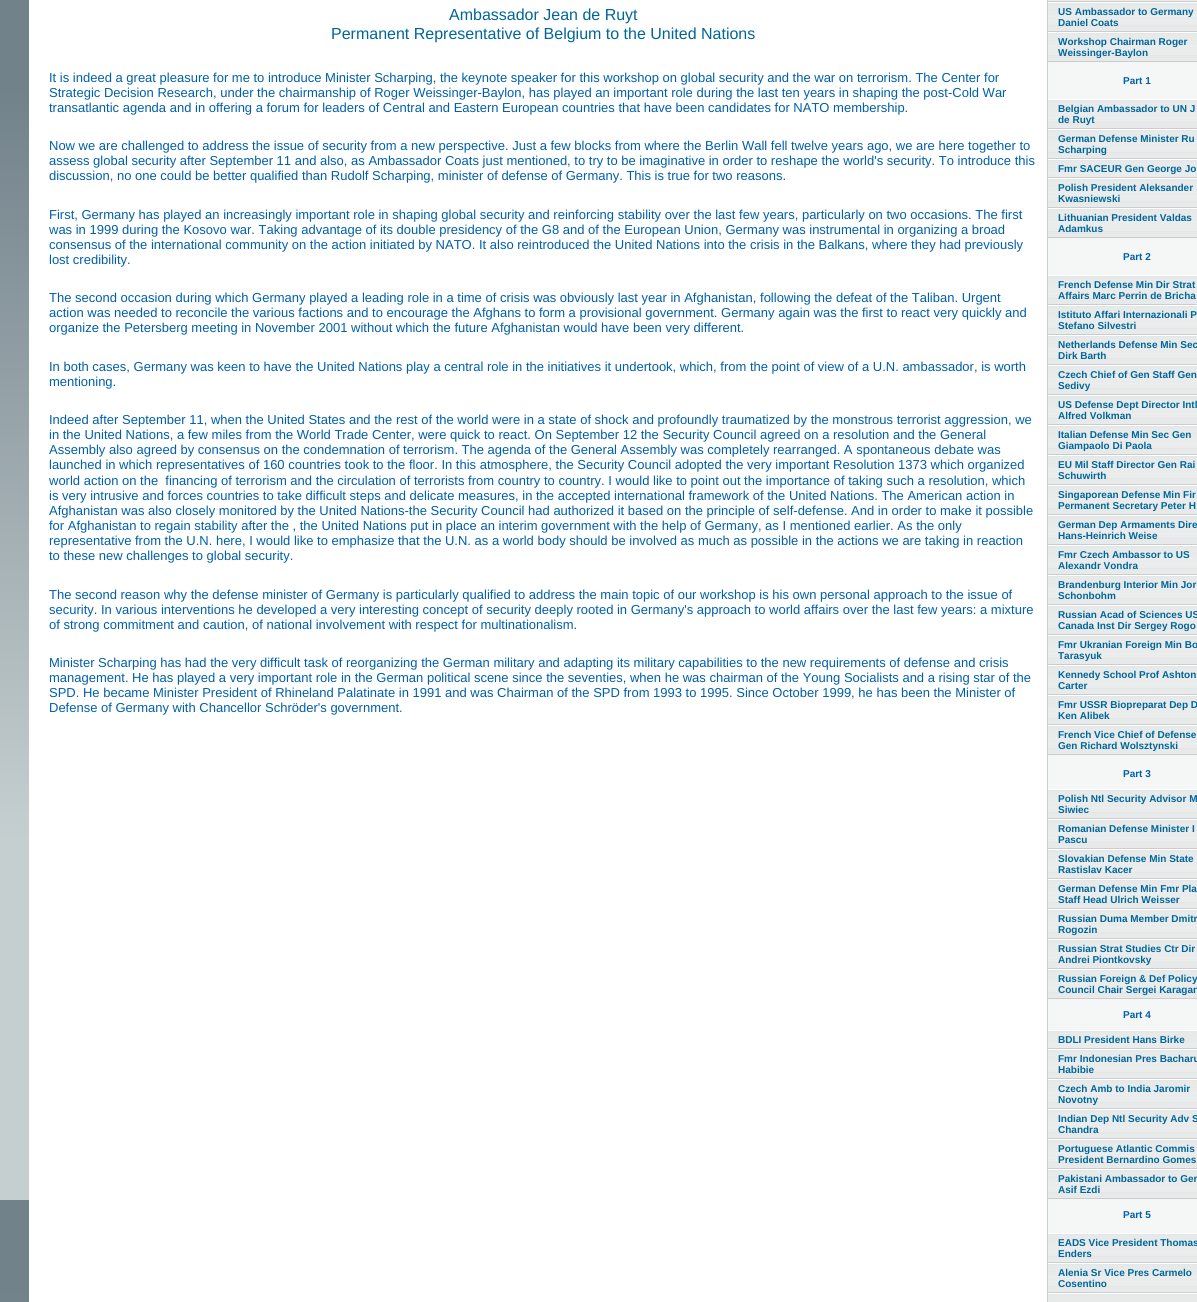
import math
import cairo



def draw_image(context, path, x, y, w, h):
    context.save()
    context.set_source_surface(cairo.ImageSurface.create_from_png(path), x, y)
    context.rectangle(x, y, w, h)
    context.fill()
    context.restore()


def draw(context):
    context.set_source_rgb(1, 1, 1)
    context.paint()
    draw_image(context, "images/1.png", 0, 0, 29, 1302)
    context.set_source_rgb(245 / 255, 247 / 255, 247 / 255)
    context.rectangle(1048, 62, 149, 1171)
    context.fill()
    context.set_source_rgb(204 / 255, 204 / 255, 204 / 255)
    context.rectangle(1047, 0, 1, 1302)
    context.fill()
    context.set_source_rgb(235 / 255, 237 / 255, 236 / 255)
    context.rectangle(1048, 0, 149, 1)
    context.fill()
    context.set_source_rgb(204 / 255, 204 / 255, 204 / 255)
    context.rectangle(1048, 1, 149, 1)
    context.fill()
    draw_image(context, "images/2.png", 1048, 3, 149, 28)
    context.rectangle(1048, 31, 149, 1)
    context.fill()
    draw_image(context, "images/2.png", 1048, 33, 149, 28)
    context.rectangle(1048, 61, 149, 1)
    context.fill()
    draw_image(context, "images/2.png", 1048, 100, 149, 28)
    context.set_source_rgb(1, 1, 1)
    context.rectangle(1048, 99, 149, 1)
    context.fill()
    context.set_source_rgb(204 / 255, 204 / 255, 204 / 255)
    context.rectangle(1048, 128, 149, 1)
    context.fill()
    draw_image(context, "images/2.png", 1048, 130, 149, 28)
    context.set_source_rgb(1, 1, 1)
    context.rectangle(1048, 129, 149, 1)
    context.fill()
    context.set_source_rgb(204 / 255, 204 / 255, 204 / 255)
    context.rectangle(1048, 158, 149, 1)
    context.fill()
    draw_image(context, "images/3.png", 1048, 160, 149, 17)
    context.set_source_rgb(1, 1, 1)
    context.rectangle(1048, 159, 149, 1)
    context.fill()
    context.set_source_rgb(204 / 255, 204 / 255, 204 / 255)
    context.rectangle(1048, 177, 149, 1)
    context.fill()
    draw_image(context, "images/2.png", 1048, 179, 149, 28)
    context.set_source_rgb(1, 1, 1)
    context.rectangle(1048, 178, 149, 1)
    context.fill()
    context.set_source_rgb(204 / 255, 204 / 255, 204 / 255)
    context.rectangle(1048, 207, 149, 1)
    context.fill()
    draw_image(context, "images/2.png", 1048, 209, 149, 28)
    context.set_source_rgb(1, 1, 1)
    context.rectangle(1048, 208, 149, 1)
    context.fill()
    context.set_source_rgb(204 / 255, 204 / 255, 204 / 255)
    context.rectangle(1048, 237, 149, 1)
    context.fill()
    draw_image(context, "images/2.png", 1048, 276, 149, 28)
    context.set_source_rgb(1, 1, 1)
    context.rectangle(1048, 275, 149, 1)
    context.fill()
    context.set_source_rgb(204 / 255, 204 / 255, 204 / 255)
    context.rectangle(1048, 304, 149, 1)
    context.fill()
    draw_image(context, "images/2.png", 1048, 306, 149, 28)
    context.set_source_rgb(1, 1, 1)
    context.rectangle(1048, 305, 149, 1)
    context.fill()
    context.set_source_rgb(204 / 255, 204 / 255, 204 / 255)
    context.rectangle(1048, 334, 149, 1)
    context.fill()
    draw_image(context, "images/2.png", 1048, 336, 149, 28)
    context.set_source_rgb(1, 1, 1)
    context.rectangle(1048, 335, 149, 1)
    context.fill()
    context.set_source_rgb(204 / 255, 204 / 255, 204 / 255)
    context.rectangle(1048, 364, 149, 1)
    context.fill()
    draw_image(context, "images/2.png", 1048, 366, 149, 28)
    context.set_source_rgb(1, 1, 1)
    context.rectangle(1048, 365, 149, 1)
    context.fill()
    context.set_source_rgb(204 / 255, 204 / 255, 204 / 255)
    context.rectangle(1048, 394, 149, 1)
    context.fill()
    draw_image(context, "images/2.png", 1048, 396, 149, 28)
    context.set_source_rgb(1, 1, 1)
    context.rectangle(1048, 395, 149, 1)
    context.fill()
    context.set_source_rgb(204 / 255, 204 / 255, 204 / 255)
    context.rectangle(1048, 424, 149, 1)
    context.fill()
    draw_image(context, "images/2.png", 1048, 426, 149, 28)
    context.set_source_rgb(1, 1, 1)
    context.rectangle(1048, 425, 149, 1)
    context.fill()
    context.set_source_rgb(204 / 255, 204 / 255, 204 / 255)
    context.rectangle(1048, 454, 149, 1)
    context.fill()
    draw_image(context, "images/2.png", 1048, 456, 149, 28)
    context.set_source_rgb(1, 1, 1)
    context.rectangle(1048, 455, 149, 1)
    context.fill()
    context.set_source_rgb(204 / 255, 204 / 255, 204 / 255)
    context.rectangle(1048, 484, 149, 1)
    context.fill()
    draw_image(context, "images/2.png", 1048, 486, 149, 28)
    context.set_source_rgb(1, 1, 1)
    context.rectangle(1048, 485, 149, 1)
    context.fill()
    context.set_source_rgb(204 / 255, 204 / 255, 204 / 255)
    context.rectangle(1048, 514, 149, 1)
    context.fill()
    draw_image(context, "images/2.png", 1048, 516, 149, 28)
    context.set_source_rgb(1, 1, 1)
    context.rectangle(1048, 515, 149, 1)
    context.fill()
    context.set_source_rgb(204 / 255, 204 / 255, 204 / 255)
    context.rectangle(1048, 544, 149, 1)
    context.fill()
    draw_image(context, "images/2.png", 1048, 546, 149, 28)
    context.set_source_rgb(1, 1, 1)
    context.rectangle(1048, 545, 149, 1)
    context.fill()
    context.set_source_rgb(204 / 255, 204 / 255, 204 / 255)
    context.rectangle(1048, 574, 149, 1)
    context.fill()
    draw_image(context, "images/2.png", 1048, 576, 149, 28)
    context.set_source_rgb(1, 1, 1)
    context.rectangle(1048, 575, 149, 1)
    context.fill()
    context.set_source_rgb(204 / 255, 204 / 255, 204 / 255)
    context.rectangle(1048, 604, 149, 1)
    context.fill()
    draw_image(context, "images/2.png", 1048, 606, 149, 28)
    context.set_source_rgb(1, 1, 1)
    context.rectangle(1048, 605, 149, 1)
    context.fill()
    context.set_source_rgb(204 / 255, 204 / 255, 204 / 255)
    context.rectangle(1048, 634, 149, 1)
    context.fill()
    draw_image(context, "images/2.png", 1048, 636, 149, 28)
    context.set_source_rgb(1, 1, 1)
    context.rectangle(1048, 635, 149, 1)
    context.fill()
    context.set_source_rgb(204 / 255, 204 / 255, 204 / 255)
    context.rectangle(1048, 664, 149, 1)
    context.fill()
    draw_image(context, "images/2.png", 1048, 666, 149, 28)
    context.set_source_rgb(1, 1, 1)
    context.rectangle(1048, 665, 149, 1)
    context.fill()
    context.set_source_rgb(204 / 255, 204 / 255, 204 / 255)
    context.rectangle(1048, 694, 149, 1)
    context.fill()
    draw_image(context, "images/2.png", 1048, 696, 149, 28)
    context.set_source_rgb(1, 1, 1)
    context.rectangle(1048, 695, 149, 1)
    context.fill()
    context.set_source_rgb(204 / 255, 204 / 255, 204 / 255)
    context.rectangle(1048, 724, 149, 1)
    context.fill()
    draw_image(context, "images/2.png", 1048, 726, 149, 28)
    context.set_source_rgb(1, 1, 1)
    context.rectangle(1048, 725, 149, 1)
    context.fill()
    context.set_source_rgb(204 / 255, 204 / 255, 204 / 255)
    context.rectangle(1048, 754, 149, 1)
    context.fill()
    draw_image(context, "images/2.png", 1048, 790, 149, 28)
    context.set_source_rgb(1, 1, 1)
    context.rectangle(1048, 789, 149, 1)
    context.fill()
    context.set_source_rgb(204 / 255, 204 / 255, 204 / 255)
    context.rectangle(1048, 818, 149, 1)
    context.fill()
    draw_image(context, "images/2.png", 1048, 820, 149, 28)
    context.set_source_rgb(1, 1, 1)
    context.rectangle(1048, 819, 149, 1)
    context.fill()
    context.set_source_rgb(204 / 255, 204 / 255, 204 / 255)
    context.rectangle(1048, 848, 149, 1)
    context.fill()
    draw_image(context, "images/2.png", 1048, 850, 149, 28)
    context.set_source_rgb(1, 1, 1)
    context.rectangle(1048, 849, 149, 1)
    context.fill()
    context.set_source_rgb(204 / 255, 204 / 255, 204 / 255)
    context.rectangle(1048, 878, 149, 1)
    context.fill()
    draw_image(context, "images/2.png", 1048, 880, 149, 28)
    context.set_source_rgb(1, 1, 1)
    context.rectangle(1048, 879, 149, 1)
    context.fill()
    context.set_source_rgb(204 / 255, 204 / 255, 204 / 255)
    context.rectangle(1048, 908, 149, 1)
    context.fill()
    draw_image(context, "images/2.png", 1048, 910, 149, 28)
    context.set_source_rgb(1, 1, 1)
    context.rectangle(1048, 909, 149, 1)
    context.fill()
    context.set_source_rgb(204 / 255, 204 / 255, 204 / 255)
    context.rectangle(1048, 938, 149, 1)
    context.fill()
    draw_image(context, "images/2.png", 1048, 940, 149, 28)
    context.set_source_rgb(1, 1, 1)
    context.rectangle(1048, 939, 149, 1)
    context.fill()
    context.set_source_rgb(204 / 255, 204 / 255, 204 / 255)
    context.rectangle(1048, 968, 149, 1)
    context.fill()
    draw_image(context, "images/2.png", 1048, 970, 149, 28)
    context.set_source_rgb(1, 1, 1)
    context.rectangle(1048, 969, 149, 1)
    context.fill()
    context.set_source_rgb(204 / 255, 204 / 255, 204 / 255)
    context.rectangle(1048, 998, 149, 1)
    context.fill()
    draw_image(context, "images/3.png", 1048, 1031, 149, 17)
    context.set_source_rgb(1, 1, 1)
    context.rectangle(1048, 1030, 149, 1)
    context.fill()
    context.set_source_rgb(204 / 255, 204 / 255, 204 / 255)
    context.rectangle(1048, 1048, 149, 1)
    context.fill()
    draw_image(context, "images/2.png", 1048, 1050, 149, 28)
    context.set_source_rgb(1, 1, 1)
    context.rectangle(1048, 1049, 149, 1)
    context.fill()
    context.set_source_rgb(204 / 255, 204 / 255, 204 / 255)
    context.rectangle(1048, 1078, 149, 1)
    context.fill()
    draw_image(context, "images/2.png", 1048, 1080, 149, 28)
    context.set_source_rgb(1, 1, 1)
    context.rectangle(1048, 1079, 149, 1)
    context.fill()
    context.set_source_rgb(204 / 255, 204 / 255, 204 / 255)
    context.rectangle(1048, 1108, 149, 1)
    context.fill()
    draw_image(context, "images/2.png", 1048, 1110, 149, 28)
    context.set_source_rgb(1, 1, 1)
    context.rectangle(1048, 1109, 149, 1)
    context.fill()
    context.set_source_rgb(204 / 255, 204 / 255, 204 / 255)
    context.rectangle(1048, 1138, 149, 1)
    context.fill()
    draw_image(context, "images/2.png", 1048, 1140, 149, 28)
    context.set_source_rgb(1, 1, 1)
    context.rectangle(1048, 1139, 149, 1)
    context.fill()
    context.set_source_rgb(204 / 255, 204 / 255, 204 / 255)
    context.rectangle(1048, 1168, 149, 1)
    context.fill()
    draw_image(context, "images/2.png", 1048, 1170, 149, 28)
    context.set_source_rgb(1, 1, 1)
    context.rectangle(1048, 1169, 149, 1)
    context.fill()
    context.set_source_rgb(204 / 255, 204 / 255, 204 / 255)
    context.rectangle(1048, 1198, 149, 1)
    context.fill()
    draw_image(context, "images/2.png", 1048, 1234, 149, 28)
    context.rectangle(1048, 1262, 149, 1)
    context.fill()
    draw_image(context, "images/2.png", 1048, 1264, 149, 28)
    context.rectangle(1048, 1292, 149, 1)
    context.fill()
    draw_image(context, "images/4.png", 1048, 1294, 149, 8)
    context.select_font_face("Liberation Sans")
    context.set_font_size(16)
    context.set_source_rgb(0, 102 / 255, 153 / 255)
    context.move_to(449, 20)
    context.show_text("Ambassador Jean de Ruyt")
    context.move_to(331, 39)
    context.show_text("Permanent Representative of Belgium to the United Nations")
    context.set_font_size(13)
    context.set_source_rgb(0, 95 / 255, 169 / 255)
    context.move_to(49, 82)
    context.show_text("It is indeed a great pleasure for me to introduce Minister Scharping, the keynote speaker for this workshop on global security and the war on terrorism. The Center for")
    context.move_to(49, 97)
    context.show_text("Strategic Decision Research, under the chairmanship of Roger Weissinger-Baylon, has played an important role during the last ten years in shaping the post-Cold War")
    context.move_to(49, 112)
    context.show_text("transatlantic agenda and in offering a forum for leaders of Central and Eastern European countries that have been candidates for NATO membership.")
    context.move_to(49, 150)
    context.show_text("Now we are challenged to address the issue of security from a new perspective. Just a few blocks from where the Berlin Wall fell twelve years ago, we are here together to")
    context.move_to(49, 165)
    context.show_text("assess global security after September 11 and also, as Ambassador Coats just mentioned, to try to be imaginative in order to reshape the world's security. To introduce this")
    context.move_to(49, 180)
    context.show_text("discussion, no one could be better qualified than Rudolf Scharping, minister of defense of Germany. This is true for two reasons.")
    context.move_to(49, 219)
    context.show_text("First, Germany has played an increasingly important role in shaping global security and reinforcing stability over the last few years, particularly on two occasions. The first")
    context.move_to(49, 234)
    context.show_text("was in 1999 during the Kosovo war. Taking advantage of its double presidency of the G8 and of the European Union, Germany was instrumental in organizing a broad")
    context.move_to(49, 249)
    context.show_text("consensus of the international community on the action initiated by NATO. It also reintroduced the United Nations into the crisis in the Balkans, where they had previously")
    context.move_to(49, 264)
    context.show_text("lost credibility.")
    context.move_to(49, 302)
    context.show_text("The second occasion during which Germany played a leading role in a time of crisis was obviously last year in Afghanistan, following the defeat of the Taliban. Urgent")
    context.move_to(49, 317)
    context.show_text("action was needed to reconcile the various factions and to encourage the Afghans to form a provisional government. Germany again was the first to react very quickly and")
    context.move_to(49, 332)
    context.show_text("organize the Petersberg meeting in November 2001 without which the future Afghanistan would have been very different.")
    context.move_to(49, 371)
    context.show_text("In both cases, Germany was keen to have the United Nations play a central role in the initiatives it undertook, which, from the point of view of a U.N. ambassador, is worth")
    context.move_to(49, 386)
    context.show_text("mentioning.")
    context.move_to(49, 424)
    context.show_text("Indeed after September 11, when the United States and the rest of the world were in a state of shock and profoundly traumatized by the monstrous terrorist aggression, we")
    context.move_to(49, 439)
    context.show_text("in the United Nations, a few miles from the World Trade Center, were quick to react. On September 12 the Security Council agreed on a resolution and the General")
    context.move_to(49, 454)
    context.show_text("Assembly also agreed by consensus on the condemnation of terrorism. The agenda of the General Assembly was completely rearranged. A spontaneous debate was")
    context.move_to(49, 469)
    context.show_text("launched in which representatives of 160 countries took to the floor. In this atmosphere, the Security Council adopted the very important Resolution 1373 which organized")
    context.move_to(49, 485)
    context.show_text("world action on the  financing of terrorism and the circulation of terrorists from country to country. I would like to point out the importance of taking such a resolution, which")
    context.move_to(49, 500)
    context.show_text("is very intrusive and forces countries to take difficult steps and delicate measures, in the accepted international framework of the United Nations. The American action in")
    context.move_to(49, 515)
    context.show_text("Afghanistan was also closely monitored by the United Nations-the Security Council had authorized it based on the principle of self-defense. And in order to make it possible")
    context.move_to(49, 530)
    context.show_text("for Afghanistan to regain stability after the , the United Nations put in place an interim government with the help of Germany, as I mentioned earlier. As the only")
    context.move_to(49, 545)
    context.show_text("representative from the U.N. here, I would like to emphasize that the U.N. as a world body should be involved as much as possible in the actions we are taking in reaction")
    context.move_to(49, 560)
    context.show_text("to these new challenges to global security.")
    context.move_to(49, 599)
    context.show_text("The second reason why the defense minister of Germany is particularly qualified to address the main topic of our workshop is his own personal approach to the issue of")
    context.move_to(49, 614)
    context.show_text("security. In various interventions he developed a very interesting concept of security deeply rooted in Germany's approach to world affairs over the last few years: a mixture")
    context.move_to(49, 629)
    context.show_text("of strong commitment and caution, of national involvement with respect for multinationalism.")
    context.move_to(49, 667)
    context.show_text("Minister Scharping has had the very difficult task of reorganizing the German military and adapting its military capabilities to the new requirements of defense and crisis")
    context.move_to(49, 682)
    context.show_text("management. He has played a very important role in the German political scene since the seventies, when he was chairman of the Young Socialists and a rising star of the")
    context.move_to(49, 697)
    context.show_text("SPD. He became Minister President of Rhineland Palatinate in 1991 and was Chairman of the SPD from 1993 to 1995. Since October 1999, he has been the Minister of")
    context.move_to(49, 712)
    context.show_text("Defense of Germany with Chancellor Schröder's government.")
    context.select_font_face("Liberation Sans", cairo.FontSlant.NORMAL, cairo.FontWeight.BOLD)
    context.set_font_size(10)
    context.set_source_rgb(0, 102 / 255, 153 / 255)
    context.move_to(1058, 15)
    context.show_text("US Ambassador to Germany")
    context.move_to(1058, 26)
    context.show_text("Daniel Coats")
    context.move_to(1058, 45)
    context.show_text("Workshop Chairman Roger")
    context.move_to(1058, 56)
    context.show_text("Weissinger-Baylon")
    context.set_source_rgb(0, 95 / 255, 169 / 255)
    context.move_to(1123, 84)
    context.show_text("Part 1")
    context.set_source_rgb(0, 102 / 255, 153 / 255)
    context.move_to(1058, 112)
    context.show_text("Belgian Ambassador to UN J")
    context.move_to(1058, 123)
    context.show_text("de Ruyt")
    context.move_to(1058, 142)
    context.show_text("German Defense Minister Ru")
    context.move_to(1058, 153)
    context.show_text("Scharping")
    context.move_to(1058, 172)
    context.show_text("Fmr SACEUR Gen George Jo")
    context.move_to(1058, 191)
    context.show_text("Polish President Aleksander")
    context.move_to(1058, 202)
    context.show_text("Kwasniewski")
    context.move_to(1058, 221)
    context.show_text("Lithuanian President Valdas")
    context.move_to(1058, 232)
    context.show_text("Adamkus")
    context.set_source_rgb(0, 95 / 255, 169 / 255)
    context.move_to(1123, 260)
    context.show_text("Part 2")
    context.set_source_rgb(0, 102 / 255, 153 / 255)
    context.move_to(1058, 288)
    context.show_text("French Defense Min Dir Strat")
    context.move_to(1058, 299)
    context.show_text("Affairs Marc Perrin de Bricha")
    context.move_to(1058, 318)
    context.show_text("Istituto Affari Internazionali P")
    context.move_to(1058, 329)
    context.show_text("Stefano Silvestri")
    context.move_to(1058, 348)
    context.show_text("Netherlands Defense Min Sec")
    context.move_to(1058, 359)
    context.show_text("Dirk Barth")
    context.move_to(1058, 378)
    context.show_text("Czech Chief of Gen Staff Gen")
    context.move_to(1058, 389)
    context.show_text("Sedivy")
    context.move_to(1058, 408)
    context.show_text("US Defense Dept Director Intl")
    context.move_to(1058, 419)
    context.show_text("Alfred Volkman")
    context.move_to(1058, 438)
    context.show_text("Italian Defense Min Sec Gen")
    context.move_to(1058, 449)
    context.show_text("Giampaolo Di Paola")
    context.move_to(1058, 468)
    context.show_text("EU Mil Staff Director Gen Rai")
    context.move_to(1058, 479)
    context.show_text("Schuwirth")
    context.move_to(1058, 498)
    context.show_text("Singaporean Defense Min Fir")
    context.move_to(1058, 509)
    context.show_text("Permanent Secretary Peter H")
    context.move_to(1058, 528)
    context.show_text("German Dep Armaments Dire")
    context.move_to(1058, 539)
    context.show_text("Hans-Heinrich Weise")
    context.move_to(1058, 558)
    context.show_text("Fmr Czech Ambassor to US")
    context.move_to(1058, 569)
    context.show_text("Alexandr Vondra")
    context.move_to(1058, 588)
    context.show_text("Brandenburg Interior Min Jor")
    context.move_to(1058, 599)
    context.show_text("Schonbohm")
    context.move_to(1058, 618)
    context.show_text("Russian Acad of Sciences US")
    context.move_to(1058, 629)
    context.show_text("Canada Inst Dir Sergey Rogo")
    context.move_to(1058, 648)
    context.show_text("Fmr Ukranian Foreign Min Bo")
    context.move_to(1058, 659)
    context.show_text("Tarasyuk")
    context.move_to(1058, 678)
    context.show_text("Kennedy School Prof Ashton")
    context.move_to(1058, 689)
    context.show_text("Carter")
    context.move_to(1058, 708)
    context.show_text("Fmr USSR Biopreparat Dep D")
    context.move_to(1058, 719)
    context.show_text("Ken Alibek")
    context.move_to(1058, 738)
    context.show_text("French Vice Chief of Defense")
    context.move_to(1058, 749)
    context.show_text("Gen Richard Wolsztynski")
    context.set_source_rgb(0, 95 / 255, 169 / 255)
    context.move_to(1123, 777)
    context.show_text("Part 3")
    context.set_source_rgb(0, 102 / 255, 153 / 255)
    context.move_to(1058, 802)
    context.show_text("Polish Ntl Security Advisor M")
    context.move_to(1058, 813)
    context.show_text("Siwiec")
    context.move_to(1058, 832)
    context.show_text("Romanian Defense Minister I")
    context.move_to(1058, 843)
    context.show_text("Pascu")
    context.move_to(1058, 862)
    context.show_text("Slovakian Defense Min State")
    context.move_to(1058, 873)
    context.show_text("Rastislav Kacer")
    context.move_to(1058, 892)
    context.show_text("German Defense Min Fmr Pla")
    context.move_to(1058, 903)
    context.show_text("Staff Head Ulrich Weisser")
    context.move_to(1058, 922)
    context.show_text("Russian Duma Member Dmitr")
    context.move_to(1058, 933)
    context.show_text("Rogozin")
    context.move_to(1058, 952)
    context.show_text("Russian Strat Studies Ctr Dir")
    context.move_to(1058, 963)
    context.show_text("Andrei Piontkovsky")
    context.move_to(1058, 982)
    context.show_text("Russian Foreign & Def Policy")
    context.move_to(1058, 993)
    context.show_text("Council Chair Sergei Karagan")
    context.set_source_rgb(0, 95 / 255, 169 / 255)
    context.move_to(1123, 1018)
    context.show_text("Part 4")
    context.set_source_rgb(0, 102 / 255, 153 / 255)
    context.move_to(1058, 1043)
    context.show_text("BDLI President Hans Birke")
    context.move_to(1058, 1062)
    context.show_text("Fmr Indonesian Pres Bacharu")
    context.move_to(1058, 1073)
    context.show_text("Habibie")
    context.move_to(1058, 1092)
    context.show_text("Czech Amb to India Jaromir")
    context.move_to(1058, 1103)
    context.show_text("Novotny")
    context.move_to(1058, 1122)
    context.show_text("Indian Dep Ntl Security Adv S")
    context.move_to(1058, 1133)
    context.show_text("Chandra")
    context.move_to(1058, 1152)
    context.show_text("Portuguese Atlantic Commis")
    context.move_to(1058, 1163)
    context.show_text("President Bernardino Gomes")
    context.move_to(1058, 1182)
    context.show_text("Pakistani Ambassador to Ger")
    context.move_to(1058, 1193)
    context.show_text("Asif Ezdi")
    context.set_source_rgb(0, 95 / 255, 169 / 255)
    context.move_to(1123, 1218)
    context.show_text("Part 5")
    context.set_source_rgb(0, 102 / 255, 153 / 255)
    context.move_to(1058, 1246)
    context.show_text("EADS Vice President Thomas")
    context.move_to(1058, 1257)
    context.show_text("Enders")
    context.move_to(1058, 1276)
    context.show_text("Alenia Sr Vice Pres Carmelo")
    context.move_to(1058, 1287)
    context.show_text("Cosentino")


surface = cairo.ImageSurface(cairo.Format.RGB24, 1197, 1302)
context = cairo.Context(surface)
options = cairo.FontOptions()
options.set_hint_metrics(cairo.HintMetrics.OFF)
options.set_hint_style(cairo.HintStyle.NONE)
context.set_font_options(options)
context.set_miter_limit(4)
draw(context)
surface.write_to_png("out.png")
